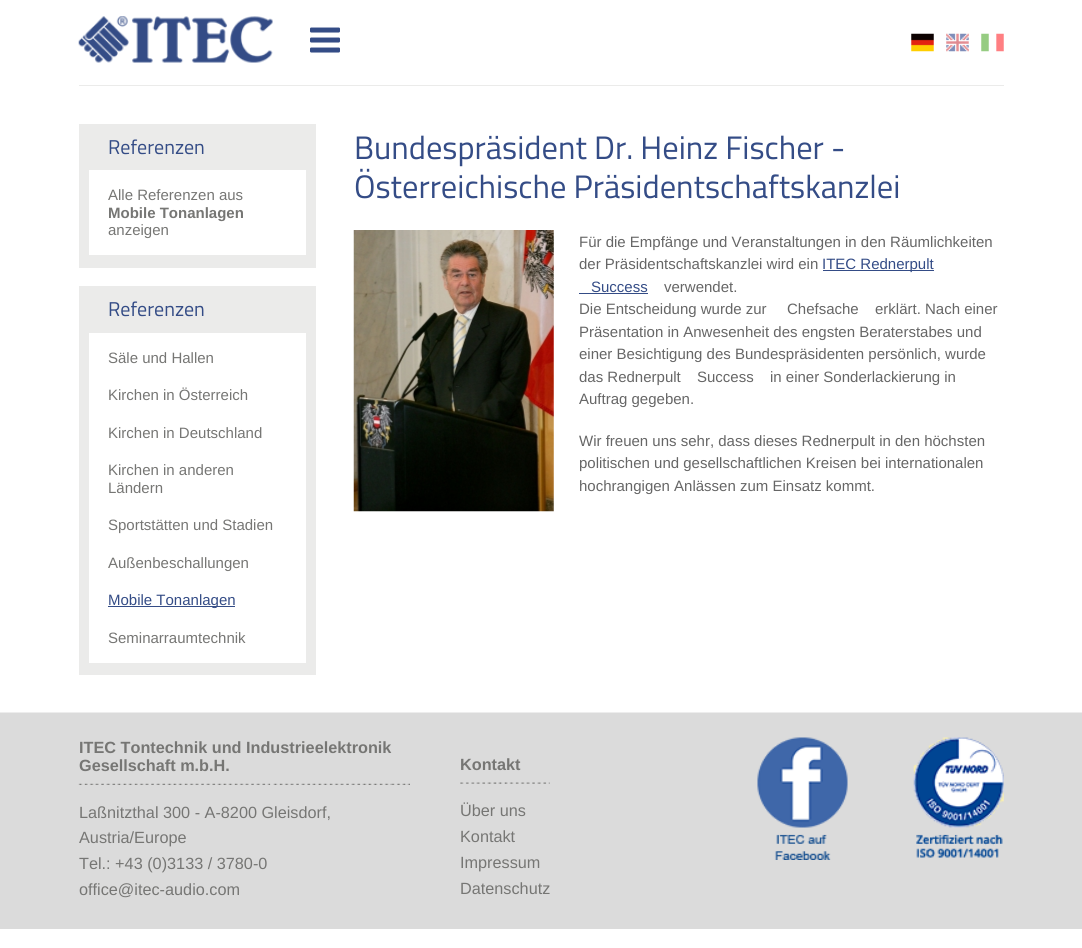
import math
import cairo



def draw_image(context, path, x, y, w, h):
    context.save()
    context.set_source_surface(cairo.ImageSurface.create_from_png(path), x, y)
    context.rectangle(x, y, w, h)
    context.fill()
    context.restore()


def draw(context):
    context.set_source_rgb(1, 1, 1)
    context.paint()
    draw_image(context, "images/1.png", 78, 16, 195, 47)
    context.set_source_rgb(235 / 255, 235 / 255, 234 / 255)
    context.rectangle(79, 85, 925, 1)
    context.fill()
    draw_image(context, "images/2.png", 310, 27, 30, 26)
    draw_image(context, "images/3.png", 911, 33, 23, 19)
    draw_image(context, "images/4.png", 946, 33, 23, 19)
    draw_image(context, "images/5.png", 981, 33, 23, 19)
    context.rectangle(79, 124, 237, 144)
    context.fill()
    context.set_source_rgb(1, 1, 1)
    context.rectangle(89, 170, 217, 85)
    context.fill()
    context.set_source_rgb(235 / 255, 235 / 255, 234 / 255)
    context.rectangle(79, 286, 237, 389)
    context.fill()
    context.set_source_rgb(1, 1, 1)
    context.rectangle(89, 333, 217, 330)
    context.fill()
    context.set_source_rgb(52 / 255, 76 / 255, 134 / 255)
    context.rectangle(108, 606, 127, 1)
    context.fill()
    draw_image(context, "images/6.png", 353, 230, 201, 282)
    context.rectangle(823, 270, 111, 1)
    context.fill()
    context.rectangle(579, 293, 69, 1)
    context.fill()
    context.set_source_rgb(219 / 255, 219 / 255, 219 / 255)
    context.rectangle(0, 713, 1082, 216)
    context.fill()
    context.set_source_rgb(237 / 255, 237 / 255, 237 / 255)
    context.rectangle(0, 712, 1082, 1)
    context.fill()
    draw_image(context, "images/7.png", 913, 737, 91, 121)
    draw_image(context, "images/8.png", 78, 783, 332, 2)
    draw_image(context, "images/9.png", 460, 782, 90, 2)
    draw_image(context, "images/10.png", 757, 737, 91, 123)
    context.select_font_face("Titillium Web")
    context.set_font_size(20)
    context.set_source_rgb(52 / 255, 76 / 255, 134 / 255)
    context.move_to(108, 154)
    context.show_text("Referenzen")
    context.select_font_face("Liberation Sans")
    context.set_font_size(15)
    context.set_source_rgb(118 / 255, 118 / 255, 116 / 255)
    context.move_to(108, 200)
    context.show_text("Alle Referenzen aus")
    context.select_font_face("Liberation Sans", cairo.FontSlant.NORMAL, cairo.FontWeight.BOLD)
    context.move_to(108, 218)
    context.show_text("Mobile Tonanlagen")
    context.select_font_face("Liberation Sans")
    context.move_to(108, 235)
    context.show_text("anzeigen")
    context.select_font_face("Titillium Web")
    context.set_font_size(20)
    context.set_source_rgb(52 / 255, 76 / 255, 134 / 255)
    context.move_to(108, 316)
    context.show_text("Referenzen")
    context.select_font_face("Liberation Sans")
    context.set_font_size(15)
    context.set_source_rgb(118 / 255, 118 / 255, 116 / 255)
    context.move_to(108, 363)
    context.show_text("Säle und Hallen")
    context.move_to(108, 400)
    context.show_text("Kirchen in Österreich")
    context.move_to(108, 438)
    context.show_text("Kirchen in Deutschland")
    context.move_to(108, 475)
    context.show_text("Kirchen in anderen")
    context.move_to(108, 493)
    context.show_text("Ländern")
    context.move_to(108, 530)
    context.show_text("Sportstätten und Stadien")
    context.move_to(108, 568)
    context.show_text("Außenbeschallungen")
    context.set_source_rgb(52 / 255, 76 / 255, 134 / 255)
    context.move_to(108, 605)
    context.show_text("Mobile Tonanlagen")
    context.set_source_rgb(118 / 255, 118 / 255, 116 / 255)
    context.move_to(108, 643)
    context.show_text("Seminarraumtechnik")
    context.select_font_face("Titillium Web")
    context.set_font_size(32.5)
    context.set_source_rgb(52 / 255, 76 / 255, 134 / 255)
    context.move_to(354, 159)
    context.show_text("Bundespräsident Dr. Heinz Fischer -")
    context.move_to(354, 198)
    context.show_text("Österreichische Präsidentschaftskanzlei")
    context.select_font_face("Liberation Sans")
    context.set_font_size(15)
    context.set_source_rgb(102 / 255, 102 / 255, 102 / 255)
    context.move_to(579, 247)
    context.show_text("Für die Empfänge und Veranstaltungen in den Räumlichkeiten")
    context.move_to(579, 269)
    context.show_text("der Präsidentschaftskanzlei wird ein")
    context.set_source_rgb(52 / 255, 76 / 255, 134 / 255)
    context.move_to(822, 269)
    context.show_text("ITEC Rednerpult")
    context.move_to(591, 292)
    context.show_text("Success")
    context.set_source_rgb(102 / 255, 102 / 255, 102 / 255)
    context.move_to(664, 292)
    context.show_text("verwendet.")
    context.move_to(579, 314)
    context.show_text("Die Entscheidung wurde zur")
    context.move_to(787, 314)
    context.show_text("Chefsache")
    context.move_to(875, 314)
    context.show_text("erklärt. Nach einer")
    context.move_to(579, 337)
    context.show_text("Präsentation in Anwesenheit des engsten Beraterstabes und")
    context.move_to(579, 359)
    context.show_text("einer Besichtigung des Bundespräsidenten persönlich, wurde")
    context.move_to(579, 382)
    context.show_text("das Rednerpult")
    context.move_to(697, 382)
    context.show_text("Success")
    context.move_to(770, 382)
    context.show_text("in einer Sonderlackierung in")
    context.move_to(579, 404)
    context.show_text("Auftrag gegeben.")
    context.move_to(579, 446)
    context.show_text("Wir freuen uns sehr, dass dieses Rednerpult in den höchsten")
    context.move_to(579, 468)
    context.show_text("politischen und gesellschaftlichen Kreisen bei internationalen")
    context.move_to(579, 491)
    context.show_text("hochrangigen Anlässen zum Einsatz kommt.")
    context.select_font_face("Liberation Sans", cairo.FontSlant.NORMAL, cairo.FontWeight.BOLD)
    context.set_font_size(16.25)
    context.set_source_rgb(118 / 255, 118 / 255, 116 / 255)
    context.move_to(79, 753)
    context.show_text("ITEC Tontechnik und Industrieelektronik")
    context.move_to(79, 771)
    context.show_text("Gesellschaft m.b.H.")
    context.select_font_face("Liberation Sans")
    context.move_to(79, 818)
    context.show_text("Laßnitzthal 300 - A-8200 Gleisdorf,")
    context.move_to(79, 843)
    context.show_text("Austria/Europe")
    context.move_to(79, 869)
    context.show_text("Tel.: +43 (0)3133 / 3780-0")
    context.move_to(79, 895)
    context.show_text("office@itec-audio.com")
    context.select_font_face("Liberation Sans", cairo.FontSlant.NORMAL, cairo.FontWeight.BOLD)
    context.move_to(460, 770)
    context.show_text("Kontakt")
    context.select_font_face("Liberation Sans")
    context.move_to(460, 816)
    context.show_text("Über uns")
    context.move_to(460, 842)
    context.show_text("Kontakt")
    context.move_to(460, 868)
    context.show_text("Impressum")
    context.move_to(460, 894)
    context.show_text("Datenschutz")


surface = cairo.ImageSurface(cairo.Format.RGB24, 1082, 948)
context = cairo.Context(surface)
options = cairo.FontOptions()
options.set_hint_metrics(cairo.HintMetrics.OFF)
options.set_hint_style(cairo.HintStyle.NONE)
context.set_font_options(options)
context.set_miter_limit(4)
draw(context)
surface.write_to_png("out.png")
